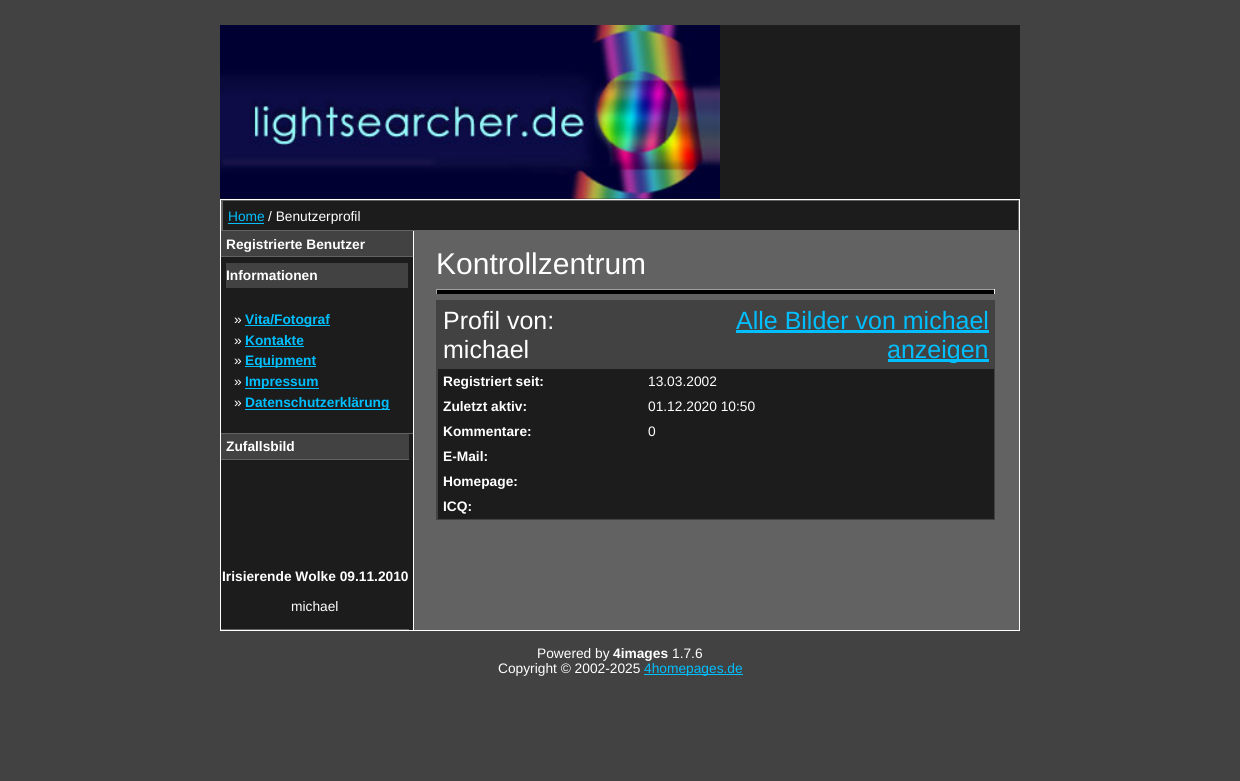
import math
import cairo



def draw_image(context, path, x, y, w, h):
    context.save()
    context.set_source_surface(cairo.ImageSurface.create_from_png(path), x, y)
    context.rectangle(x, y, w, h)
    context.fill()
    context.restore()


def draw(context):
    context.set_source_rgb(66 / 255, 66 / 255, 66 / 255)
    context.paint()
    context.set_source_rgb(28 / 255, 28 / 255, 28 / 255)
    context.rectangle(220, 25, 800, 174)
    context.fill()
    draw_image(context, "images/1.png", 220, 25, 500, 174)
    context.set_source_rgb(1, 1, 1)
    context.rectangle(220, 199, 800, 432)
    context.fill()
    context.set_source_rgb(98 / 255, 98 / 255, 98 / 255)
    context.rectangle(221, 200, 798, 430)
    context.fill()
    context.set_source_rgb(28 / 255, 28 / 255, 28 / 255)
    context.rectangle(223, 201, 795, 29)
    context.fill()
    context.set_source_rgb(0, 191 / 255, 1)
    context.rectangle(228, 223, 36, 1)
    context.fill()
    context.set_source_rgb(28 / 255, 28 / 255, 28 / 255)
    context.rectangle(221, 257, 192, 373)
    context.fill()
    context.set_source_rgb(66 / 255, 66 / 255, 66 / 255)
    context.rectangle(221, 231, 192, 25)
    context.fill()
    context.rectangle(226, 263, 182, 25)
    context.fill()
    context.set_source_rgb(0, 191 / 255, 1)
    context.rectangle(245, 325, 85, 1)
    context.fill()
    context.rectangle(245, 346, 59, 1)
    context.fill()
    context.rectangle(245, 366, 71, 1)
    context.fill()
    context.rectangle(245, 388, 74, 1)
    context.fill()
    context.rectangle(245, 409, 145, 1)
    context.fill()
    context.set_source_rgb(98 / 255, 98 / 255, 98 / 255)
    context.rectangle(221, 433, 192, 1)
    context.fill()
    context.set_source_rgb(66 / 255, 66 / 255, 66 / 255)
    context.rectangle(221, 434, 188, 25)
    context.fill()
    context.set_source_rgb(98 / 255, 98 / 255, 98 / 255)
    context.rectangle(221, 459, 188, 1)
    context.fill()
    context.rectangle(221, 629, 188, 1)
    context.fill()
    context.set_source_rgb(1, 1, 1)
    context.rectangle(413, 231, 1, 399)
    context.fill()
    context.set_source_rgb(0, 0, 0)
    context.rectangle(436, 290, 559, 4)
    context.fill()
    context.set_source_rgb(159 / 255, 159 / 255, 159 / 255)
    context.rectangle(436, 289, 559, 1)
    context.fill()
    context.set_source_rgb(238 / 255, 238 / 255, 238 / 255)
    context.rectangle(994, 289, 1, 5)
    context.fill()
    context.set_source_rgb(159 / 255, 159 / 255, 159 / 255)
    context.rectangle(436, 289, 1, 5)
    context.fill()
    context.set_source_rgb(66 / 255, 66 / 255, 66 / 255)
    context.rectangle(436, 300, 559, 220)
    context.fill()
    context.set_source_rgb(0, 191 / 255, 1)
    context.rectangle(736, 330, 253, 3)
    context.fill()
    context.rectangle(888, 359, 101, 3)
    context.fill()
    context.set_source_rgb(28 / 255, 28 / 255, 28 / 255)
    context.rectangle(438, 369, 556, 25)
    context.fill()
    context.rectangle(438, 394, 556, 25)
    context.fill()
    context.rectangle(438, 419, 556, 25)
    context.fill()
    context.rectangle(438, 444, 556, 25)
    context.fill()
    context.rectangle(438, 469, 556, 25)
    context.fill()
    context.rectangle(438, 494, 556, 25)
    context.fill()
    context.set_source_rgb(0, 191 / 255, 1)
    context.rectangle(644, 674, 99, 1)
    context.fill()
    context.select_font_face("Liberation Sans")
    context.set_font_size(13.75)
    context.move_to(228, 221)
    context.show_text("Home")
    context.set_source_rgb(1, 1, 1)
    context.move_to(268, 221)
    context.show_text("/ Benutzerprofil")
    context.select_font_face("Liberation Sans", cairo.FontSlant.NORMAL, cairo.FontWeight.BOLD)
    context.move_to(226, 249)
    context.show_text("Registrierte Benutzer")
    context.move_to(226, 280)
    context.show_text("Informationen")
    context.select_font_face("Liberation Sans")
    context.move_to(234, 324)
    context.show_text("»")
    context.select_font_face("Liberation Sans", cairo.FontSlant.NORMAL, cairo.FontWeight.BOLD)
    context.set_source_rgb(0, 191 / 255, 1)
    context.move_to(245, 324)
    context.show_text("Vita/Fotograf")
    context.select_font_face("Liberation Sans")
    context.set_source_rgb(1, 1, 1)
    context.move_to(234, 345)
    context.show_text("»")
    context.select_font_face("Liberation Sans", cairo.FontSlant.NORMAL, cairo.FontWeight.BOLD)
    context.set_source_rgb(0, 191 / 255, 1)
    context.move_to(245, 345)
    context.show_text("Kontakte")
    context.select_font_face("Liberation Sans")
    context.set_source_rgb(1, 1, 1)
    context.move_to(234, 365)
    context.show_text("»")
    context.select_font_face("Liberation Sans", cairo.FontSlant.NORMAL, cairo.FontWeight.BOLD)
    context.set_source_rgb(0, 191 / 255, 1)
    context.move_to(245, 365)
    context.show_text("Equipment")
    context.select_font_face("Liberation Sans")
    context.set_source_rgb(1, 1, 1)
    context.move_to(234, 386)
    context.show_text("»")
    context.select_font_face("Liberation Sans", cairo.FontSlant.NORMAL, cairo.FontWeight.BOLD)
    context.set_source_rgb(0, 191 / 255, 1)
    context.move_to(245, 386)
    context.show_text("Impressum")
    context.select_font_face("Liberation Sans")
    context.set_source_rgb(1, 1, 1)
    context.move_to(234, 407)
    context.show_text("»")
    context.select_font_face("Liberation Sans", cairo.FontSlant.NORMAL, cairo.FontWeight.BOLD)
    context.set_source_rgb(0, 191 / 255, 1)
    context.move_to(245, 407)
    context.show_text("Datenschutzerklärung")
    context.set_source_rgb(1, 1, 1)
    context.move_to(226, 451)
    context.show_text("Zufallsbild")
    context.move_to(222, 581)
    context.show_text("Irisierende Wolke 09.11.2010")
    context.select_font_face("Liberation Sans")
    context.move_to(291, 611)
    context.show_text("michael")
    context.set_font_size(30)
    context.move_to(436, 274)
    context.show_text("Kontrollzentrum")
    context.set_font_size(25)
    context.move_to(443, 329)
    context.show_text("Profil von:")
    context.move_to(443, 358)
    context.show_text("michael")
    context.set_source_rgb(0, 191 / 255, 1)
    context.move_to(736, 329)
    context.show_text("Alle Bilder von michael")
    context.move_to(887, 358)
    context.show_text("anzeigen")
    context.select_font_face("Liberation Sans", cairo.FontSlant.NORMAL, cairo.FontWeight.BOLD)
    context.set_font_size(13.75)
    context.set_source_rgb(1, 1, 1)
    context.move_to(443, 386)
    context.show_text("Registriert seit:")
    context.select_font_face("Liberation Sans")
    context.move_to(648, 386)
    context.show_text("13.03.2002")
    context.select_font_face("Liberation Sans", cairo.FontSlant.NORMAL, cairo.FontWeight.BOLD)
    context.move_to(443, 411)
    context.show_text("Zuletzt aktiv:")
    context.select_font_face("Liberation Sans")
    context.move_to(648, 411)
    context.show_text("01.12.2020 10:50")
    context.select_font_face("Liberation Sans", cairo.FontSlant.NORMAL, cairo.FontWeight.BOLD)
    context.move_to(443, 436)
    context.show_text("Kommentare:")
    context.select_font_face("Liberation Sans")
    context.move_to(648, 436)
    context.show_text("0")
    context.select_font_face("Liberation Sans", cairo.FontSlant.NORMAL, cairo.FontWeight.BOLD)
    context.move_to(443, 461)
    context.show_text("E-Mail:")
    context.move_to(443, 486)
    context.show_text("Homepage:")
    context.move_to(443, 511)
    context.show_text("ICQ:")
    context.select_font_face("Liberation Sans")
    context.move_to(537, 658)
    context.show_text("Powered by")
    context.select_font_face("Liberation Sans", cairo.FontSlant.NORMAL, cairo.FontWeight.BOLD)
    context.move_to(613, 658)
    context.show_text("4images")
    context.select_font_face("Liberation Sans")
    context.move_to(672, 658)
    context.show_text("1.7.6")
    context.move_to(498, 673)
    context.show_text("Copyright © 2002-2025")
    context.set_source_rgb(0, 191 / 255, 1)
    context.move_to(644, 673)
    context.show_text("4homepages.de")


surface = cairo.ImageSurface(cairo.Format.RGB24, 1240, 781)
context = cairo.Context(surface)
options = cairo.FontOptions()
options.set_hint_metrics(cairo.HintMetrics.OFF)
options.set_hint_style(cairo.HintStyle.NONE)
context.set_font_options(options)
context.set_miter_limit(4)
draw(context)
surface.write_to_png("out.png")
